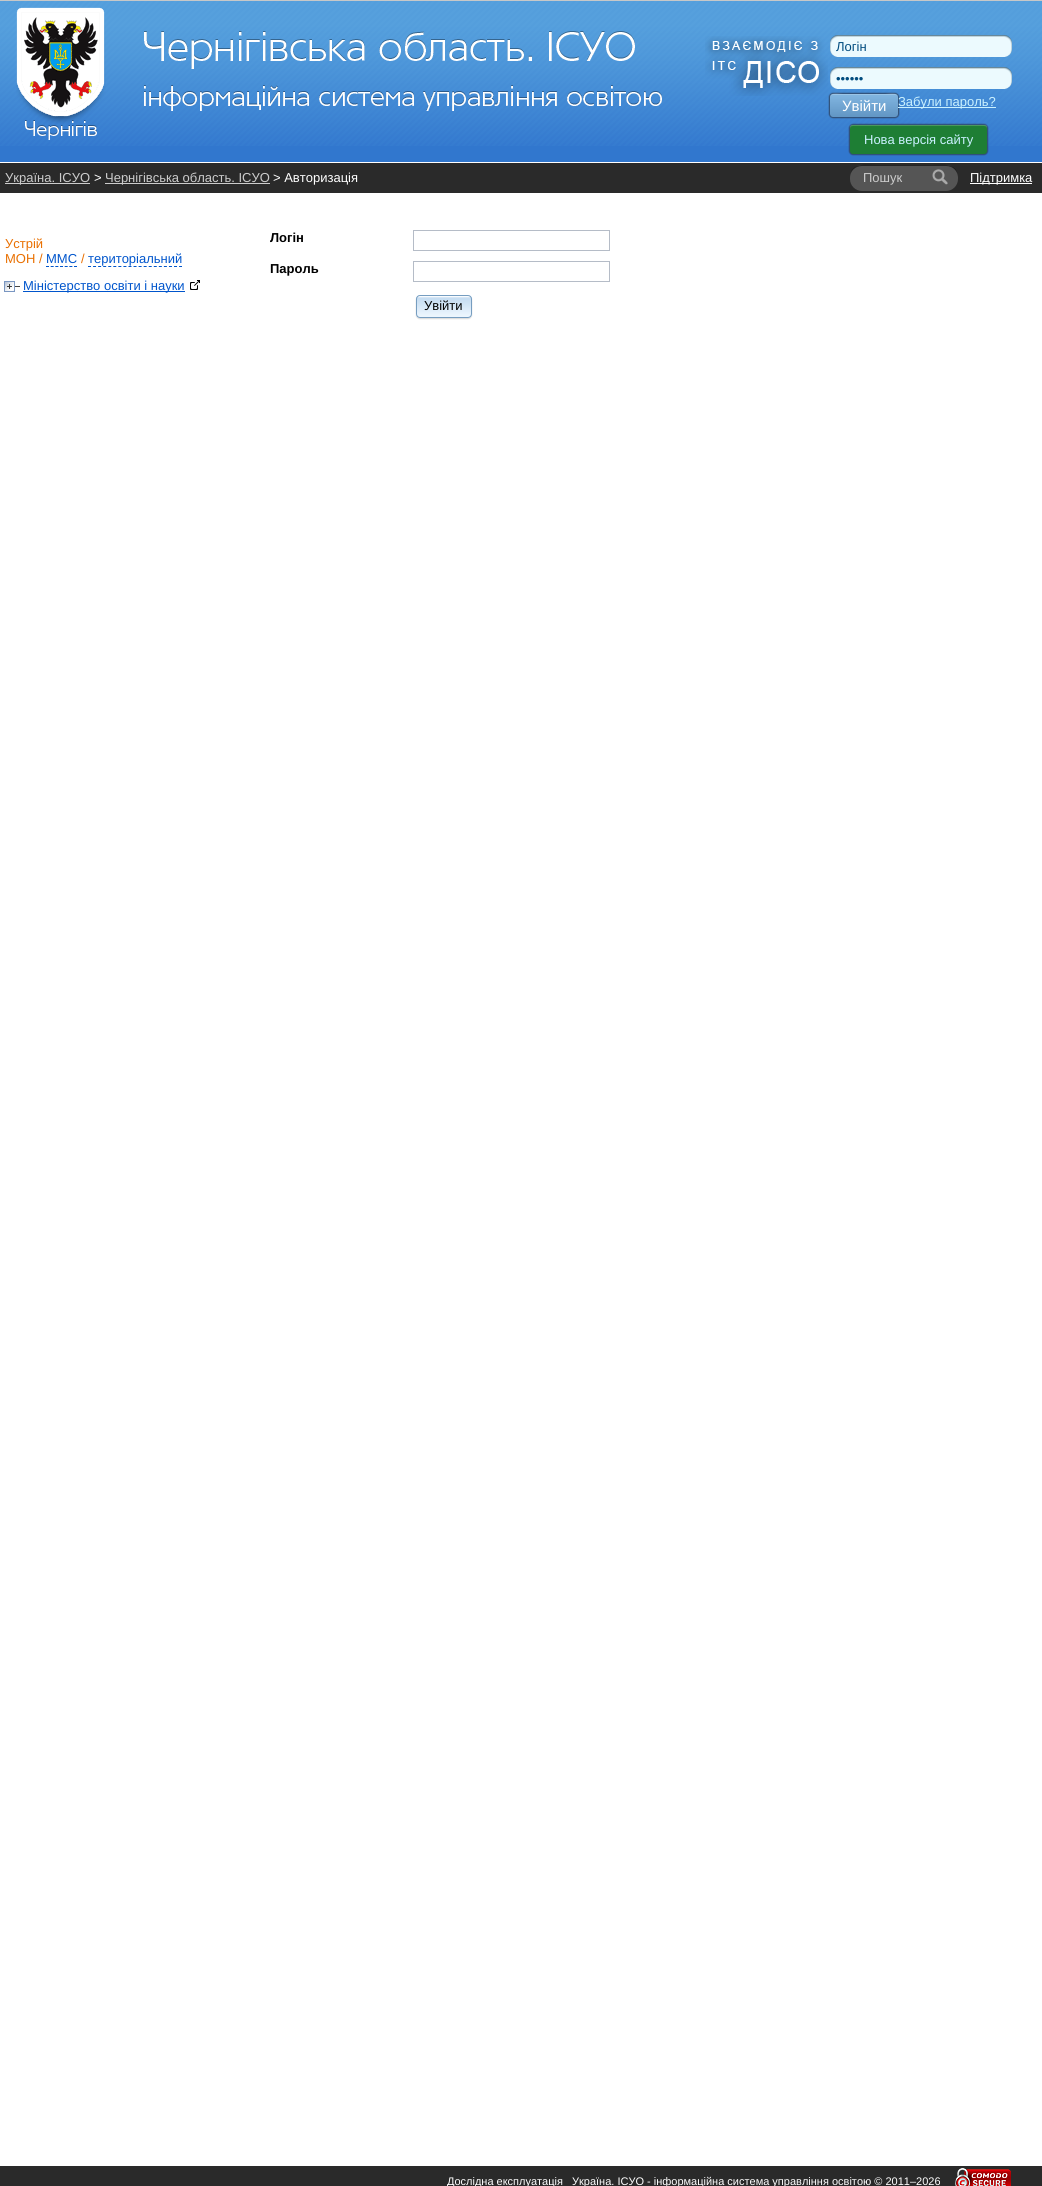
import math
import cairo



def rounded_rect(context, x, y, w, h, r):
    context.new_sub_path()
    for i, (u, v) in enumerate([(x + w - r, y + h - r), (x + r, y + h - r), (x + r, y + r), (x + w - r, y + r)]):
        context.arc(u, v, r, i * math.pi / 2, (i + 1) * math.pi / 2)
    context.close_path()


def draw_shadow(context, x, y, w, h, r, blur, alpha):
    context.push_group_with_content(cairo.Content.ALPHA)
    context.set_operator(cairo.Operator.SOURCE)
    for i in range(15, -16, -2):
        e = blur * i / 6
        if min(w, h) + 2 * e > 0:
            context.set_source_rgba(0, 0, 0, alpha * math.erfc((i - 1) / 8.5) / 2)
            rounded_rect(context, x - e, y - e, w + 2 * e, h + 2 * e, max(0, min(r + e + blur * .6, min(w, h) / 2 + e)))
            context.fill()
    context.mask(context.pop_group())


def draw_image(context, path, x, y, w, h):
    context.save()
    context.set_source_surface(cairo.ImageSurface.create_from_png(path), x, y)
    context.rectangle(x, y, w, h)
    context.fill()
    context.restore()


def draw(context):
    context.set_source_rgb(1, 1, 1)
    context.paint()
    context.set_source_rgb(49 / 255, 119 / 255, 206 / 255)
    context.rectangle(0, 146, 1042, 16)
    context.fill()
    draw_image(context, "images/1.png", 0, 0, 1042, 146)
    draw_image(context, "images/2.png", 16, 7, 646, 133)
    draw_image(context, "images/3.png", 705, 36, 123, 60)
    draw_image(context, "images/4.png", 830, 35, 182, 22)
    draw_image(context, "images/5.png", 830, 67, 182, 22)
    context.set_source_rgb(47 / 255, 70 / 255, 102 / 255)
    draw_shadow(context, 829, 93, 70, 25, 4, 0.5, 0.9)
    gradient = cairo.LinearGradient(864, 117, 864, 94)
    gradient.add_color_stop_rgba(0, 98 / 255, 150 / 255, 196 / 255, 1)
    gradient.add_color_stop_rgba(1, 130 / 255, 182 / 255, 225 / 255, 1)
    context.set_source(gradient)
    rounded_rect(context, 830, 94, 68, 23, 3)
    context.fill()
    context.set_source_rgba(1, 1, 1, 0.2)
    context.new_path()
    context.move_to(833, 95)
    context.line_to(895, 95)
    context.curve_to(897, 95, 898, 96, 898, 98)
    context.curve_to(898, 91, 889, 94, 885, 94)
    context.line_to(843, 94)
    context.curve_to(839, 94, 830, 91, 830, 98)
    context.curve_to(830, 96, 831, 95, 833, 95)
    context.close_path()
    context.fill()
    context.set_source_rgb(202 / 255, 241 / 255, 1)
    context.rectangle(898, 107, 98, 1)
    context.fill()
    context.set_source_rgb(47 / 255, 70 / 255, 102 / 255)
    draw_shadow(context, 849, 124, 139, 31, 4, 0.5, 0.9)
    context.set_source_rgb(30 / 255, 126 / 255, 52 / 255)
    rounded_rect(context, 850, 125, 137, 29, 3)
    context.fill()
    context.set_source_rgba(1, 1, 1, 0.2)
    context.new_path()
    context.move_to(853, 126)
    context.line_to(984, 126)
    context.curve_to(986, 126, 987, 127, 987, 129)
    context.curve_to(987, 127, 987, 125, 985, 125)
    context.line_to(852, 125)
    context.curve_to(850, 125, 850, 127, 850, 129)
    context.curve_to(850, 127, 851, 126, 853, 126)
    context.close_path()
    context.fill()
    context.set_source_rgb(42 / 255, 42 / 255, 42 / 255)
    context.rectangle(0, 163, 1042, 30)
    context.fill()
    context.set_source_rgb(204 / 255, 204 / 255, 204 / 255)
    context.rectangle(5, 183, 85, 1)
    context.fill()
    context.rectangle(105, 183, 165, 1)
    context.fill()
    context.set_source_rgb(85 / 255, 85 / 255, 85 / 255)
    rounded_rect(context, 850, 165, 108, 26, 12)
    context.fill()
    context.set_source_rgba(0, 0, 0, 0.3)
    context.new_path()
    context.move_to(862, 166)
    context.line_to(946, 166)
    context.curve_to(953, 166, 958, 171, 958, 178)
    context.curve_to(958, 162, 943, 165, 932, 165)
    context.line_to(876, 165)
    context.curve_to(865, 165, 850, 162, 850, 178)
    context.curve_to(850, 171, 855, 166, 862, 166)
    context.close_path()
    context.fill()
    context.set_source_rgba(0, 0, 0, 0.4)
    context.new_path()
    context.move_to(862, 166)
    context.line_to(946, 166)
    context.curve_to(953, 166, 958, 171, 958, 178)
    context.curve_to(958, 162, 943, 165, 932, 165)
    context.line_to(876, 165)
    context.curve_to(865, 165, 850, 162, 850, 178)
    context.curve_to(850, 171, 855, 166, 862, 166)
    context.close_path()
    context.fill()
    draw_image(context, "images/6.png", 932, 169, 16, 16)
    context.set_source_rgb(1, 1, 1)
    context.rectangle(970, 183, 62, 1)
    context.fill()
    context.new_path()
    context.move_to(46, 266.5)
    context.line_to(77, 266.5)
    context.set_source_rgb(0, 85 / 255, 204 / 255)
    context.set_line_width(1)
    context.set_dash([3, 1.67])
    context.stroke()
    context.new_path()
    context.move_to(88, 266.5)
    context.line_to(182, 266.5)
    context.set_dash([3, 2.06])
    context.stroke()
    draw_image(context, "images/7.png", 4, 281, 16, 11)
    context.rectangle(23, 291, 162, 1)
    context.fill()
    draw_image(context, "images/8.png", 190, 280, 10, 10)
    context.rectangle(413.5, 230.5, 196, 20)
    context.set_source_rgb(181 / 255, 188 / 255, 199 / 255)
    context.set_dash([])
    context.stroke()
    context.rectangle(413.5, 261.5, 196, 20)
    context.stroke()
    context.set_source_rgb(0, 0, 0)
    draw_shadow(context, 416, 296, 56, 23, 4, 0.5, 0.15)
    context.set_source_rgb(233 / 255, 244 / 255, 254 / 255)
    rounded_rect(context, 416, 295, 56, 23, 4)
    context.fill()
    draw_image(context, "images/9.png", 416, 296, 56, 22)
    rounded_rect(context, 416.5, 295.5, 55, 22, 3.5)
    context.set_source_rgb(118 / 255, 157 / 255, 192 / 255)
    context.stroke()
    context.set_source_rgb(42 / 255, 42 / 255, 42 / 255)
    context.rectangle(0, 2166, 1042, 20)
    context.fill()
    draw_image(context, "images/10.png", 955, 2168, 56, 18)
    context.select_font_face("Liberation Sans")
    context.set_font_size(13)
    context.set_source_rgb(1 / 255, 76 / 255, 127 / 255)
    context.move_to(836, 51)
    context.show_text("Логін")
    context.move_to(836, 83)
    context.show_text("••••••")
    context.set_font_size(15)
    context.set_source_rgb(1, 1, 1)
    context.move_to(842, 111)
    context.show_text("Увійти")
    context.set_font_size(13)
    context.set_source_rgb(202 / 255, 241 / 255, 1)
    context.move_to(898, 106)
    context.show_text("Забули пароль?")
    context.move_to(864, 144)
    context.show_text("Нова версія сайту")
    context.set_source_rgb(204 / 255, 204 / 255, 204 / 255)
    context.move_to(5, 182)
    context.show_text("Україна. ІСУО")
    context.set_source_rgb(1, 1, 1)
    context.move_to(94, 182)
    context.show_text(">")
    context.set_source_rgb(204 / 255, 204 / 255, 204 / 255)
    context.move_to(105, 182)
    context.show_text("Чернігівська область. ІСУО")
    context.set_source_rgb(1, 1, 1)
    context.move_to(273, 182)
    context.show_text("> Авторизація")
    context.set_source_rgb(204 / 255, 204 / 255, 204 / 255)
    context.move_to(863, 182)
    context.show_text("Пошук")
    context.set_source_rgb(1, 1, 1)
    context.move_to(970, 182)
    context.show_text("Підтримка")
    context.set_source_rgb(233 / 255, 112 / 255, 1 / 255)
    context.move_to(5, 248)
    context.show_text("Устрій")
    context.move_to(5, 263)
    context.show_text("МОН /")
    context.set_source_rgb(0, 85 / 255, 204 / 255)
    context.move_to(46, 263)
    context.show_text("ММС")
    context.set_source_rgb(233 / 255, 112 / 255, 1 / 255)
    context.move_to(81, 263)
    context.show_text("/")
    context.set_source_rgb(0, 85 / 255, 204 / 255)
    context.move_to(88, 263)
    context.show_text("територіальний")
    context.move_to(23, 290)
    context.show_text("Міністерство освіти і науки")
    context.select_font_face("Liberation Sans", cairo.FontSlant.NORMAL, cairo.FontWeight.BOLD)
    context.set_source_rgb(0, 0, 0)
    context.move_to(270, 242)
    context.show_text("Логін")
    context.move_to(270, 273)
    context.show_text("Пароль")
    context.select_font_face("Liberation Sans")
    context.move_to(424, 310)
    context.show_text("Увійти")
    context.set_font_size(11)
    context.set_source_rgb(1, 1, 1)
    context.move_to(447, 2185)
    context.show_text("Дослідна експлуатація")
    context.move_to(572, 2185)
    context.show_text("Україна. ІСУО - інформаційна система управління освітою © 2011–2026")


surface = cairo.ImageSurface(cairo.Format.RGB24, 1042, 2186)
context = cairo.Context(surface)
options = cairo.FontOptions()
options.set_hint_metrics(cairo.HintMetrics.OFF)
options.set_hint_style(cairo.HintStyle.NONE)
context.set_font_options(options)
context.set_miter_limit(4)
draw(context)
surface.write_to_png("out.png")
